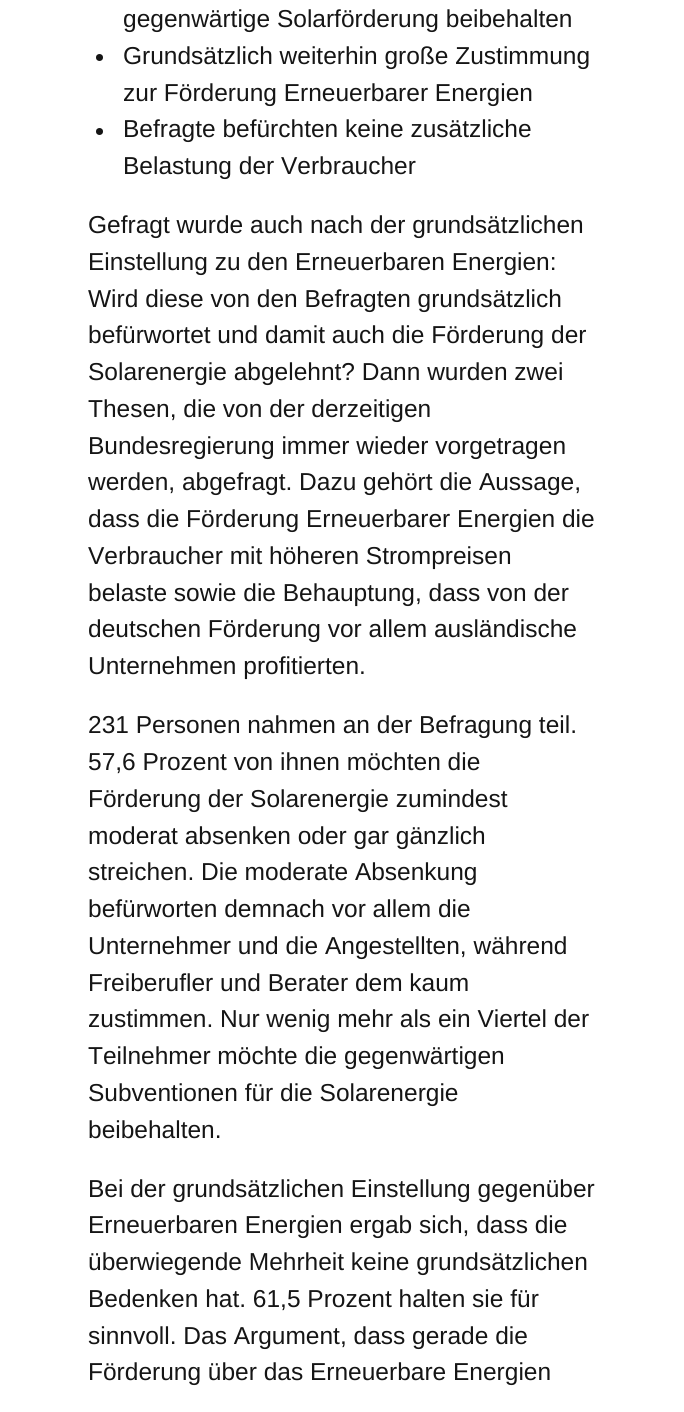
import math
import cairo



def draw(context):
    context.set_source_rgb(1, 1, 1)
    context.paint()
    context.set_source_rgb(21 / 255, 21 / 255, 21 / 255)
    context.arc(99.5, 57.5, 3.5, 0, 2 * math.pi)
    context.fill()
    context.arc(99.5, 131.5, 3.5, 0, 2 * math.pi)
    context.fill()
    context.select_font_face("Liberation Sans")
    context.set_font_size(24.5)
    context.move_to(123, 27)
    context.show_text("gegenwärtige Solarförderung beibehalten")
    context.move_to(123, 64)
    context.show_text("Grundsätzlich weiterhin große Zustimmung")
    context.move_to(123, 101)
    context.show_text("zur Förderung Erneuerbarer Energien")
    context.move_to(123, 137)
    context.show_text("Befragte befürchten keine zusätzliche")
    context.move_to(123, 174)
    context.show_text("Belastung der Verbraucher")
    context.move_to(88, 233)
    context.show_text("Gefragt wurde auch nach der grundsätzlichen")
    context.move_to(88, 270)
    context.show_text("Einstellung zu den Erneuerbaren Energien:")
    context.move_to(88, 307)
    context.show_text("Wird diese von den Befragten grundsätzlich")
    context.move_to(88, 343)
    context.show_text("befürwortet und damit auch die Förderung der")
    context.move_to(88, 380)
    context.show_text("Solarenergie abgelehnt? Dann wurden zwei")
    context.move_to(88, 417)
    context.show_text("Thesen, die von der derzeitigen")
    context.move_to(88, 454)
    context.show_text("Bundesregierung immer wieder vorgetragen")
    context.move_to(88, 490)
    context.show_text("werden, abgefragt. Dazu gehört die Aussage,")
    context.move_to(88, 527)
    context.show_text("dass die Förderung Erneuerbarer Energien die")
    context.move_to(88, 564)
    context.show_text("Verbraucher mit höheren Strompreisen")
    context.move_to(88, 601)
    context.show_text("belaste sowie die Behauptung, dass von der")
    context.move_to(88, 637)
    context.show_text("deutschen Förderung vor allem ausländische")
    context.move_to(88, 674)
    context.show_text("Unternehmen profitierten.")
    context.move_to(88, 733)
    context.show_text("231 Personen nahmen an der Befragung teil.")
    context.move_to(88, 770)
    context.show_text("57,6 Prozent von ihnen möchten die")
    context.move_to(88, 807)
    context.show_text("Förderung der Solarenergie zumindest")
    context.move_to(88, 844)
    context.show_text("moderat absenken oder gar gänzlich")
    context.move_to(88, 880)
    context.show_text("streichen. Die moderate Absenkung")
    context.move_to(88, 917)
    context.show_text("befürworten demnach vor allem die")
    context.move_to(88, 954)
    context.show_text("Unternehmer und die Angestellten, während")
    context.move_to(88, 991)
    context.show_text("Freiberufler und Berater dem kaum")
    context.move_to(88, 1027)
    context.show_text("zustimmen. Nur wenig mehr als ein Viertel der")
    context.move_to(88, 1064)
    context.show_text("Teilnehmer möchte die gegenwärtigen")
    context.move_to(88, 1101)
    context.show_text("Subventionen für die Solarenergie")
    context.move_to(88, 1138)
    context.show_text("beibehalten.")
    context.move_to(88, 1197)
    context.show_text("Bei der grundsätzlichen Einstellung gegenüber")
    context.move_to(88, 1233)
    context.show_text("Erneuerbaren Energien ergab sich, dass die")
    context.move_to(88, 1270)
    context.show_text("überwiegende Mehrheit keine grundsätzlichen")
    context.move_to(88, 1307)
    context.show_text("Bedenken hat. 61,5 Prozent halten sie für")
    context.move_to(88, 1344)
    context.show_text("sinnvoll. Das Argument, dass gerade die")
    context.move_to(88, 1380)
    context.show_text("Förderung über das Erneuerbare Energien")


surface = cairo.ImageSurface(cairo.Format.RGB24, 684, 1412)
context = cairo.Context(surface)
options = cairo.FontOptions()
options.set_hint_metrics(cairo.HintMetrics.OFF)
options.set_hint_style(cairo.HintStyle.NONE)
context.set_font_options(options)
context.set_miter_limit(4)
draw(context)
surface.write_to_png("out.png")
